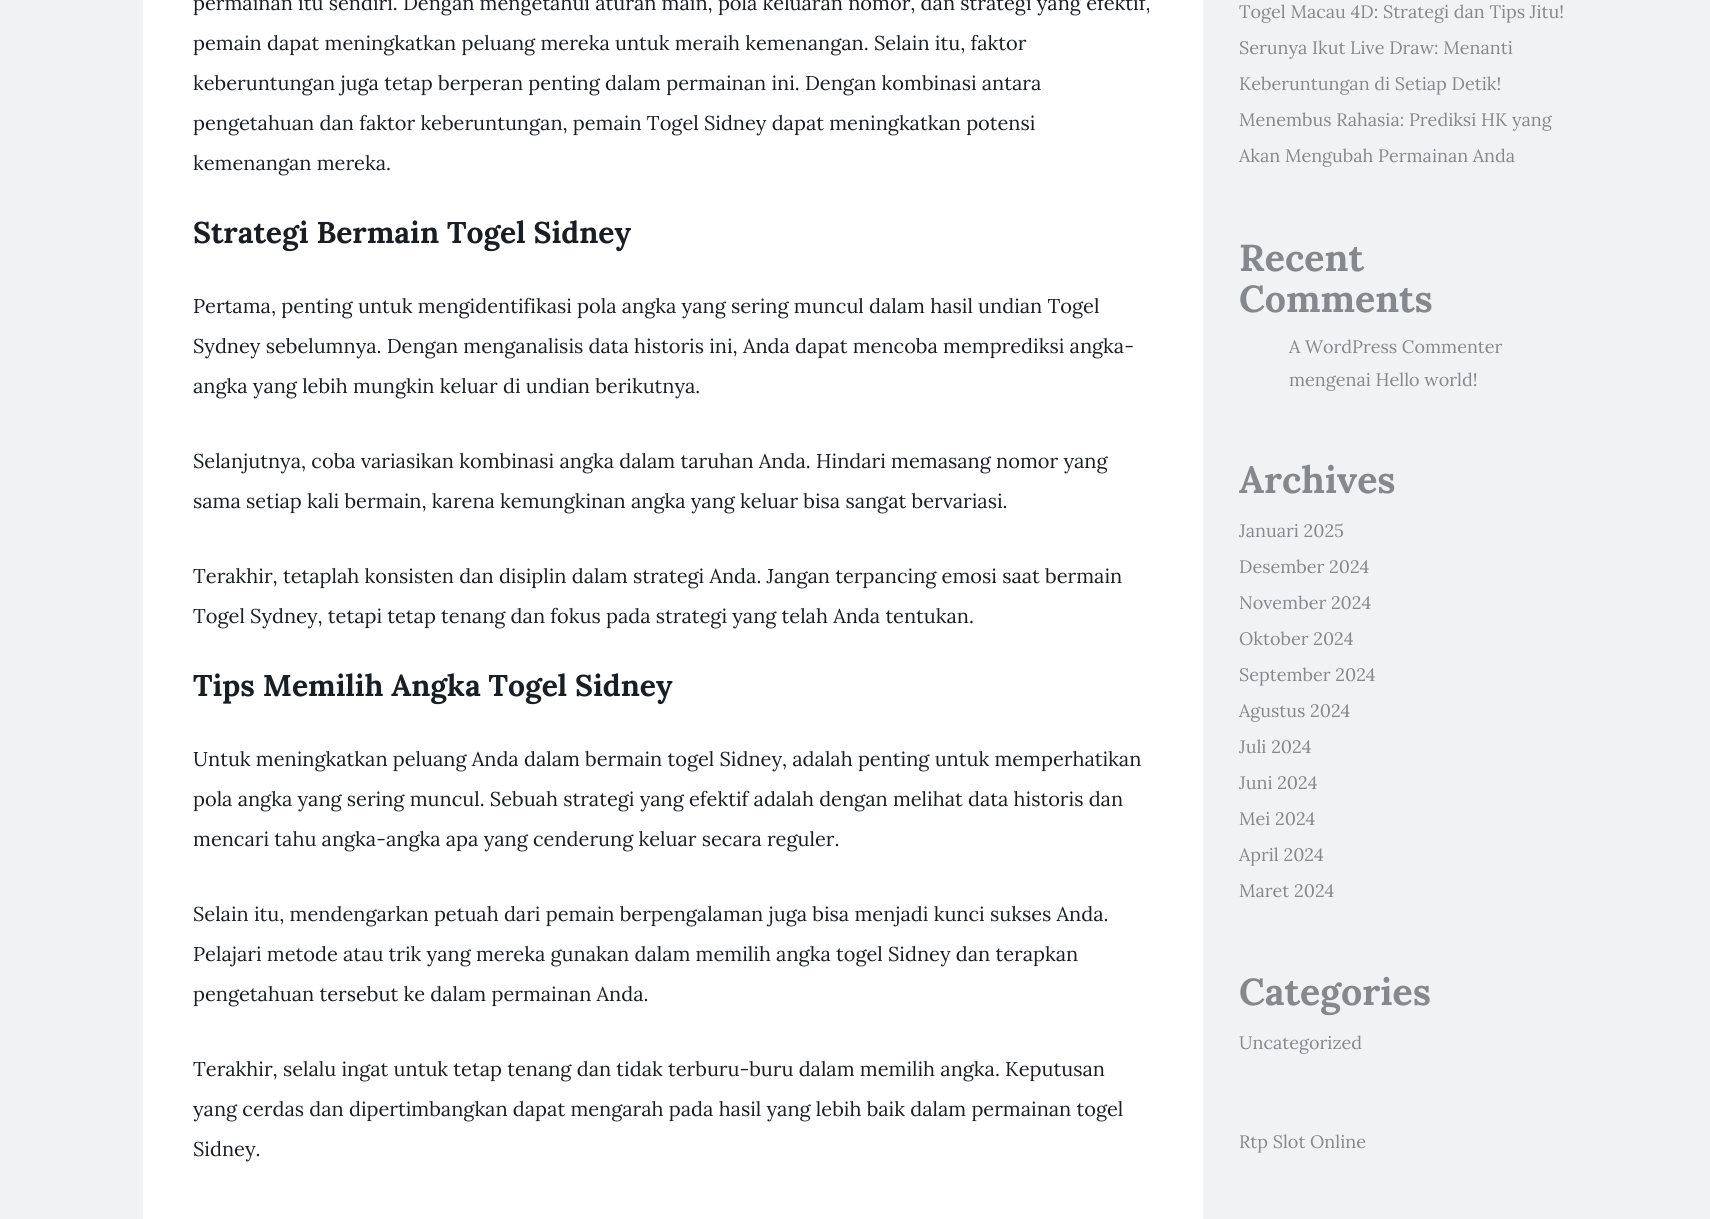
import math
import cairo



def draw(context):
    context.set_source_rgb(241 / 255, 242 / 255, 244 / 255)
    context.paint()
    context.set_source_rgb(1, 1, 1)
    context.rectangle(143, 0, 1060, 1219)
    context.fill()
    context.select_font_face("Lora")
    context.set_font_size(20)
    context.set_source_rgb(25 / 255, 30 / 255, 36 / 255)
    context.move_to(193, 10)
    context.show_text("permainan itu sendiri. Dengan mengetahui aturan main, pola keluaran nomor, dan strategi yang efektif,")
    context.move_to(193, 50)
    context.show_text("pemain dapat meningkatkan peluang mereka untuk meraih kemenangan. Selain itu, faktor")
    context.move_to(193, 90)
    context.show_text("keberuntungan juga tetap berperan penting dalam permainan ini. Dengan kombinasi antara")
    context.move_to(193, 130)
    context.show_text("pengetahuan dan faktor keberuntungan, pemain Togel Sidney dapat meningkatkan potensi")
    context.move_to(193, 170)
    context.show_text("kemenangan mereka.")
    context.select_font_face("Lora", cairo.FontSlant.NORMAL, cairo.FontWeight.BOLD)
    context.set_font_size(30)
    context.move_to(193, 243)
    context.show_text("Strategi Bermain Togel Sidney")
    context.select_font_face("Lora")
    context.set_font_size(20)
    context.move_to(193, 313)
    context.show_text("Pertama, penting untuk mengidentifikasi pola angka yang sering muncul dalam hasil undian Togel")
    context.move_to(193, 353)
    context.show_text("Sydney sebelumnya. Dengan menganalisis data historis ini, Anda dapat mencoba memprediksi angka-")
    context.move_to(193, 393)
    context.show_text("angka yang lebih mungkin keluar di undian berikutnya.")
    context.move_to(193, 468)
    context.show_text("Selanjutnya, coba variasikan kombinasi angka dalam taruhan Anda. Hindari memasang nomor yang")
    context.move_to(193, 508)
    context.show_text("sama setiap kali bermain, karena kemungkinan angka yang keluar bisa sangat bervariasi.")
    context.move_to(193, 583)
    context.show_text("Terakhir, tetaplah konsisten dan disiplin dalam strategi Anda. Jangan terpancing emosi saat bermain")
    context.move_to(193, 623)
    context.show_text("Togel Sydney, tetapi tetap tenang dan fokus pada strategi yang telah Anda tentukan.")
    context.select_font_face("Lora", cairo.FontSlant.NORMAL, cairo.FontWeight.BOLD)
    context.set_font_size(30)
    context.move_to(193, 696)
    context.show_text("Tips Memilih Angka Togel Sidney")
    context.select_font_face("Lora")
    context.set_font_size(20)
    context.move_to(193, 766)
    context.show_text("Untuk meningkatkan peluang Anda dalam bermain togel Sidney, adalah penting untuk memperhatikan")
    context.move_to(193, 806)
    context.show_text("pola angka yang sering muncul. Sebuah strategi yang efektif adalah dengan melihat data historis dan")
    context.move_to(193, 846)
    context.show_text("mencari tahu angka-angka apa yang cenderung keluar secara reguler.")
    context.move_to(193, 921)
    context.show_text("Selain itu, mendengarkan petuah dari pemain berpengalaman juga bisa menjadi kunci sukses Anda.")
    context.move_to(193, 961)
    context.show_text("Pelajari metode atau trik yang mereka gunakan dalam memilih angka togel Sidney dan terapkan")
    context.move_to(193, 1001)
    context.show_text("pengetahuan tersebut ke dalam permainan Anda.")
    context.move_to(193, 1076)
    context.show_text("Terakhir, selalu ingat untuk tetap tenang dan tidak terburu-buru dalam memilih angka. Keputusan")
    context.move_to(193, 1116)
    context.show_text("yang cerdas dan dipertimbangkan dapat mengarah pada hasil yang lebih baik dalam permainan togel")
    context.move_to(193, 1156)
    context.show_text("Sidney.")
    context.set_font_size(18)
    context.set_source_rgb(133 / 255, 136 / 255, 140 / 255)
    context.move_to(1239, 18)
    context.show_text("Togel Macau 4D: Strategi dan Tips Jitu!")
    context.move_to(1239, 54)
    context.show_text("Serunya Ikut Live Draw: Menanti")
    context.move_to(1239, 90)
    context.show_text("Keberuntungan di Setiap Detik!")
    context.move_to(1239, 126)
    context.show_text("Menembus Rahasia: Prediksi HK yang")
    context.move_to(1239, 162)
    context.show_text("Akan Mengubah Permainan Anda")
    context.select_font_face("Lora", cairo.FontSlant.NORMAL, cairo.FontWeight.BOLD)
    context.set_font_size(37.5)
    context.move_to(1239, 271)
    context.show_text("Recent")
    context.move_to(1239, 312)
    context.show_text("Comments")
    context.select_font_face("Lora")
    context.set_font_size(18)
    context.move_to(1289, 353)
    context.show_text("A WordPress Commenter")
    context.move_to(1289, 386)
    context.show_text("mengenai Hello world!")
    context.select_font_face("Lora", cairo.FontSlant.NORMAL, cairo.FontWeight.BOLD)
    context.set_font_size(37.5)
    context.move_to(1239, 493)
    context.show_text("Archives")
    context.select_font_face("Lora")
    context.set_font_size(18)
    context.move_to(1239, 537)
    context.show_text("Januari 2025")
    context.move_to(1239, 573)
    context.show_text("Desember 2024")
    context.move_to(1239, 609)
    context.show_text("November 2024")
    context.move_to(1239, 645)
    context.show_text("Oktober 2024")
    context.move_to(1239, 681)
    context.show_text("September 2024")
    context.move_to(1239, 717)
    context.show_text("Agustus 2024")
    context.move_to(1239, 753)
    context.show_text("Juli 2024")
    context.move_to(1239, 789)
    context.show_text("Juni 2024")
    context.move_to(1239, 825)
    context.show_text("Mei 2024")
    context.move_to(1239, 861)
    context.show_text("April 2024")
    context.move_to(1239, 897)
    context.show_text("Maret 2024")
    context.select_font_face("Lora", cairo.FontSlant.NORMAL, cairo.FontWeight.BOLD)
    context.set_font_size(37.5)
    context.move_to(1239, 1005)
    context.show_text("Categories")
    context.select_font_face("Lora")
    context.set_font_size(18)
    context.move_to(1239, 1049)
    context.show_text("Uncategorized")
    context.move_to(1239, 1148)
    context.show_text("Rtp Slot Online")


surface = cairo.ImageSurface(cairo.Format.RGB24, 1710, 1219)
context = cairo.Context(surface)
options = cairo.FontOptions()
options.set_hint_metrics(cairo.HintMetrics.OFF)
options.set_hint_style(cairo.HintStyle.NONE)
context.set_font_options(options)
context.set_miter_limit(4)
draw(context)
surface.write_to_png("out.png")
